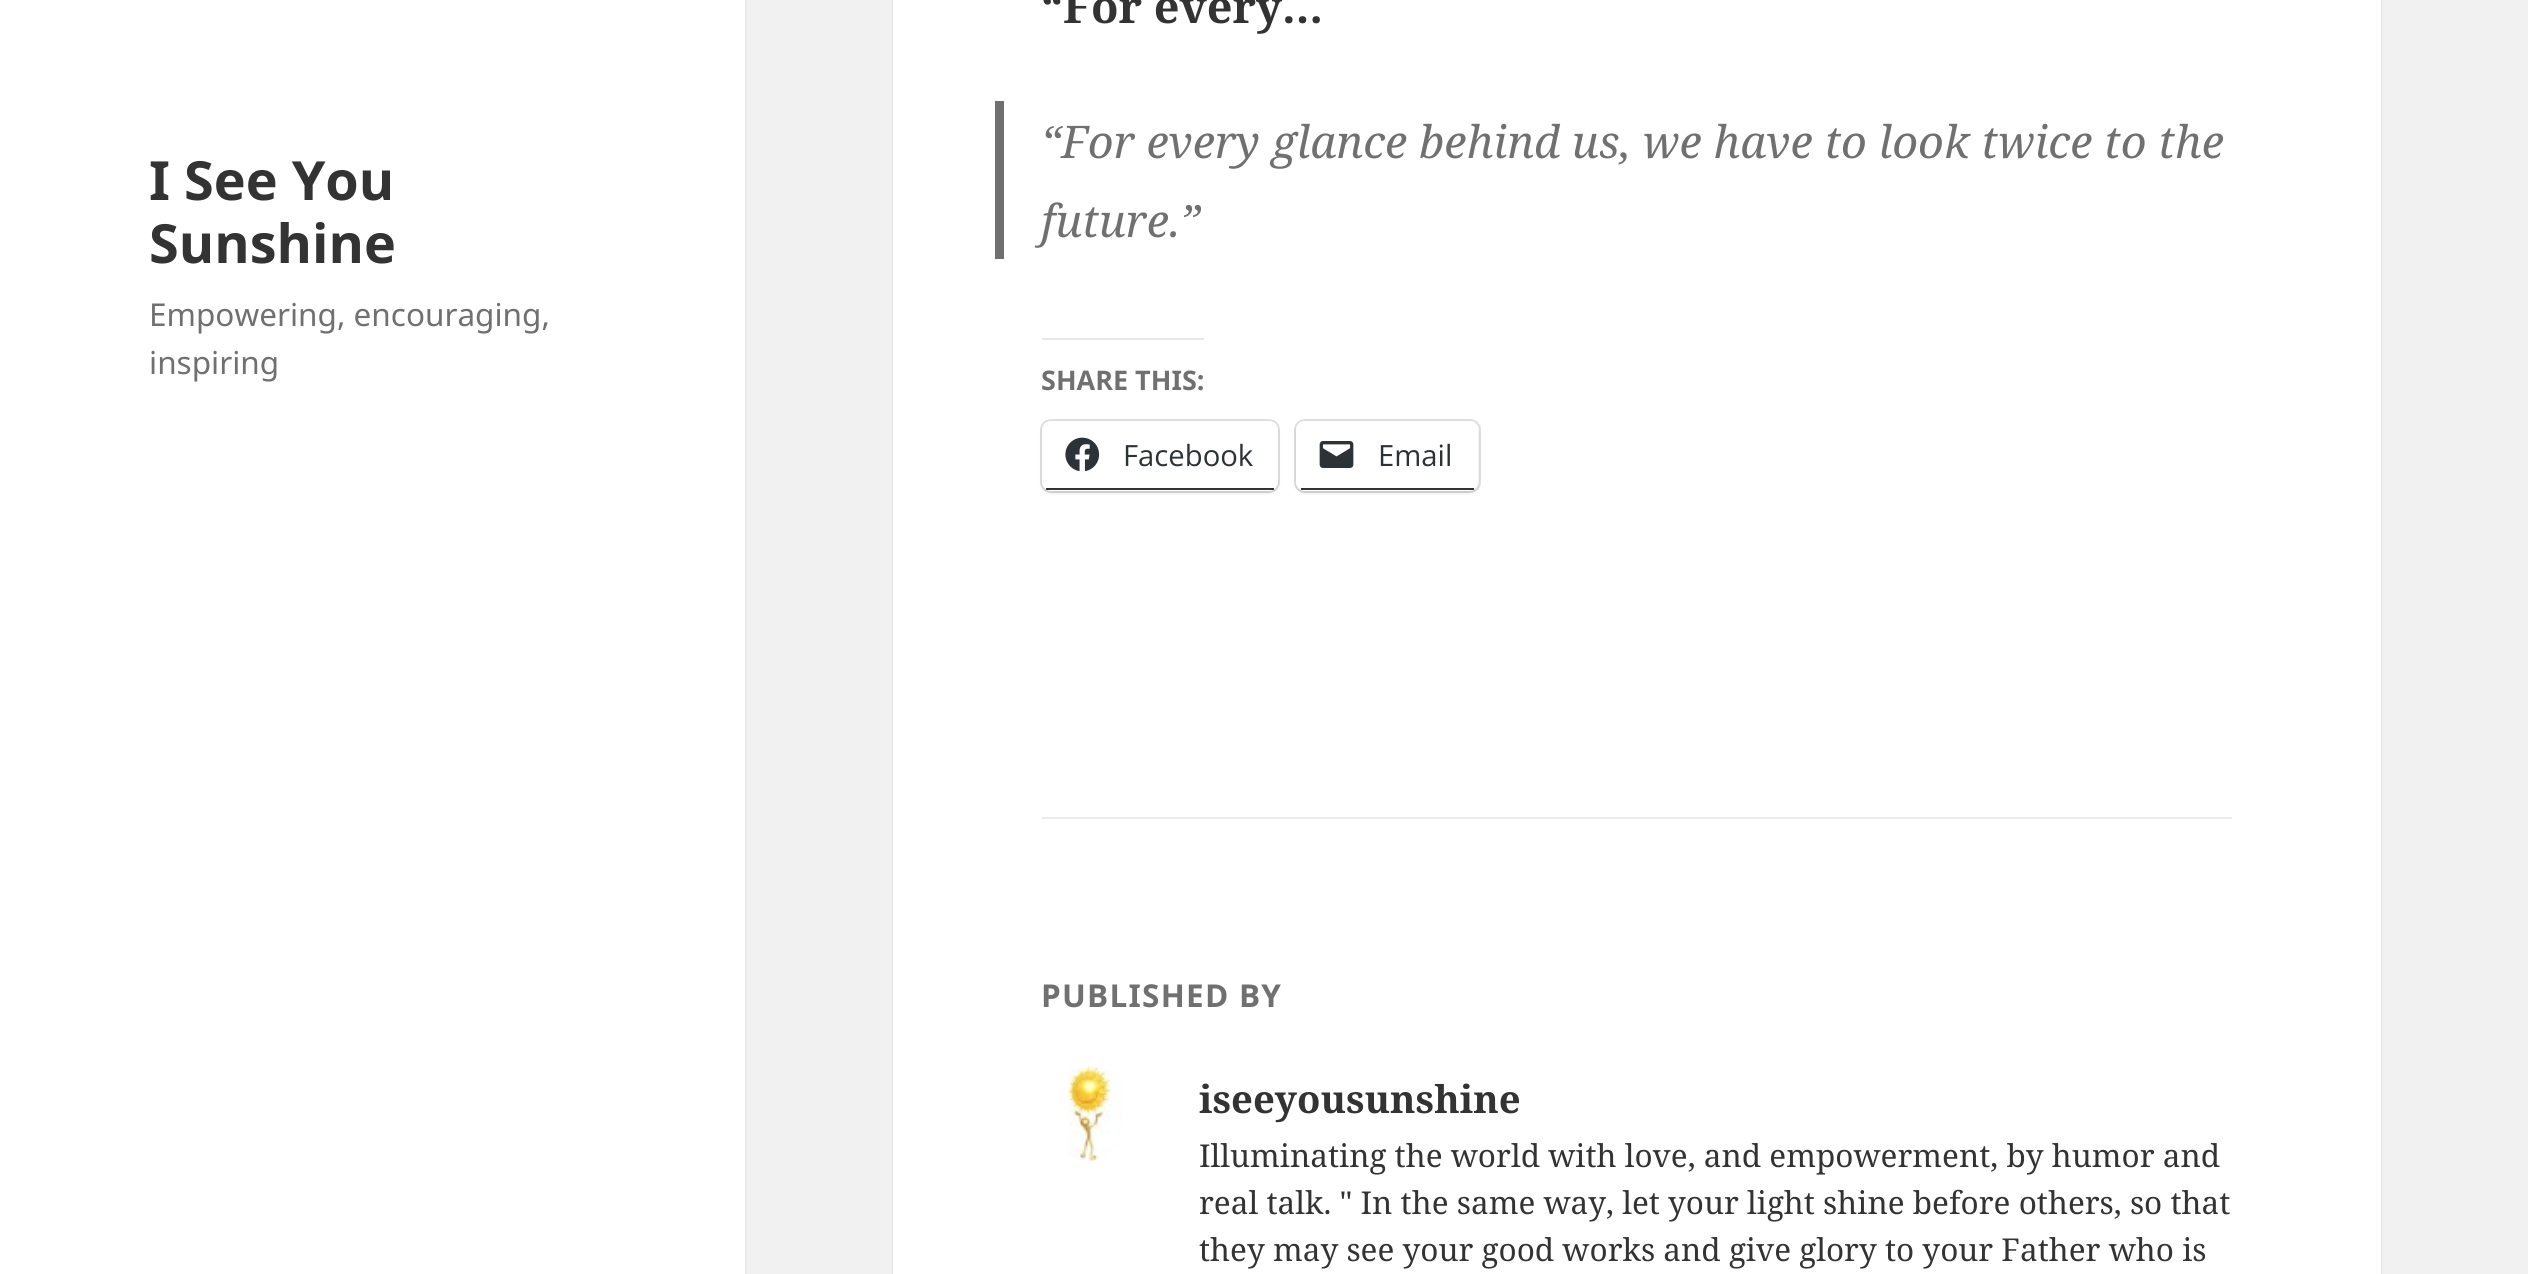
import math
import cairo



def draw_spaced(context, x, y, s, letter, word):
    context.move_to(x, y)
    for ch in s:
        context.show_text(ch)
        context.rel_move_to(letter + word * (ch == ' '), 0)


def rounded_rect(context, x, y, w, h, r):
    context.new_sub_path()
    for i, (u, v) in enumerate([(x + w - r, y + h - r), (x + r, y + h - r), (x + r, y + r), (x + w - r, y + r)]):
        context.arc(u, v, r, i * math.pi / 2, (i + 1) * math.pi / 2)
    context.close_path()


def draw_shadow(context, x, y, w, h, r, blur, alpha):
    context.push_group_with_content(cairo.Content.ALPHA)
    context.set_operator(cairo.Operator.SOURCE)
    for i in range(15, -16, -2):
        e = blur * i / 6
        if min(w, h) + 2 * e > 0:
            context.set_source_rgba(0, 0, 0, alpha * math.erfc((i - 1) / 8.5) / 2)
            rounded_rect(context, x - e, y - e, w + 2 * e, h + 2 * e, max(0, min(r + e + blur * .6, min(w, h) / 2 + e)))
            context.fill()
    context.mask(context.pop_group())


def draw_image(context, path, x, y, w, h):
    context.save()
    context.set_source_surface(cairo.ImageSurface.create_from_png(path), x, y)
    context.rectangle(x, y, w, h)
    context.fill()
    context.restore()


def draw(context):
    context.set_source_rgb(241 / 255, 241 / 255, 241 / 255)
    context.paint()
    context.set_source_rgb(0, 0, 0)
    draw_shadow(context, 0, 0, 745, 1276, 0, 1, 0.15)
    context.set_source_rgb(1, 1, 1)
    context.rectangle(0, 0, 745, 1274)
    context.fill()
    context.set_source_rgb(0, 0, 0)
    draw_shadow(context, 893, -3, 1488, 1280, 0, 1, 0.15)
    context.set_source_rgb(1, 1, 1)
    context.rectangle(893, 0, 1488, 1274)
    context.fill()
    context.set_source_rgb(112 / 255, 112 / 255, 112 / 255)
    context.rectangle(995, 101, 9, 158)
    context.fill()
    context.set_source_rgb(231 / 255, 231 / 255, 232 / 255)
    context.rectangle(1042, 338, 162, 2)
    context.fill()
    rounded_rect(context, 1041, 420, 238, 72, 10)
    context.set_source_rgb(224 / 255, 224 / 255, 224 / 255)
    context.stroke()
    context.set_source_rgb(0, 0, 0)
    draw_shadow(context, 1042, 423, 236, 70, 9, 2, 0.12)
    context.set_source_rgb(1, 1, 1)
    rounded_rect(context, 1042, 421, 236, 70, 9)
    context.fill()
    context.set_source_rgb(51 / 255, 51 / 255, 51 / 255)
    context.rectangle(1046, 488, 228, 2)
    context.fill()
    draw_image(context, "images/1.png", 1065, 437, 35, 35)
    rounded_rect(context, 1295, 420, 185, 72, 10)
    context.set_source_rgb(224 / 255, 224 / 255, 224 / 255)
    context.stroke()
    context.set_source_rgb(0, 0, 0)
    draw_shadow(context, 1296, 423, 182, 70, 9, 2, 0.12)
    context.set_source_rgb(1, 1, 1)
    rounded_rect(context, 1296, 421, 182, 70, 9)
    context.fill()
    context.set_source_rgb(51 / 255, 51 / 255, 51 / 255)
    context.rectangle(1301, 488, 173, 2)
    context.fill()
    draw_image(context, "images/2.png", 1319, 441, 35, 27)
    context.set_source_rgb(235 / 255, 235 / 255, 235 / 255)
    context.rectangle(1042, 817, 1190, 2)
    context.fill()
    draw_image(context, "images/3.png", 1067, 1066, 55, 95)
    context.select_font_face("Noto Sans", cairo.FontSlant.NORMAL, cairo.FontWeight.BOLD)
    context.set_font_size(54)
    context.set_source_rgb(51 / 255, 51 / 255, 51 / 255)
    context.move_to(149, 200)
    context.show_text("I See You")
    context.move_to(149, 263)
    context.show_text("Sunshine")
    context.select_font_face("Noto Sans")
    context.set_font_size(31.5)
    context.set_source_rgb(112 / 255, 112 / 255, 112 / 255)
    context.move_to(149, 326)
    context.show_text("Empowering, encouraging,")
    context.move_to(149, 374)
    context.show_text("inspiring")
    context.select_font_face("Noto Serif", cairo.FontSlant.NORMAL, cairo.FontWeight.BOLD)
    context.set_font_size(45)
    context.set_source_rgb(51 / 255, 51 / 255, 51 / 255)
    context.move_to(1041, 23)
    context.show_text("“For every…")
    context.select_font_face("Noto Serif", cairo.FontSlant.ITALIC)
    context.set_source_rgb(112 / 255, 112 / 255, 112 / 255)
    context.move_to(1041, 158)
    context.show_text("“For every glance behind us, we have to look twice to the")
    context.move_to(1041, 237)
    context.show_text("future.”")
    context.select_font_face("Noto Sans", cairo.FontSlant.NORMAL, cairo.FontWeight.BOLD)
    context.set_font_size(27)
    context.move_to(1041, 390)
    context.show_text("SHARE THIS:")
    context.select_font_face("Open Sans")
    context.set_font_size(29.25)
    context.set_source_rgb(44 / 255, 51 / 255, 56 / 255)
    context.move_to(1123, 466)
    context.show_text("Facebook")
    context.move_to(1378, 466)
    context.show_text("Email")
    context.select_font_face("Noto Sans", cairo.FontSlant.NORMAL, cairo.FontWeight.BOLD)
    context.set_font_size(31.5)
    context.set_source_rgb(112 / 255, 112 / 255, 112 / 255)
    draw_spaced(context, 1041, 1007, "PUBLISHED BY", 1.25, 0)
    context.select_font_face("Noto Serif", cairo.FontSlant.NORMAL, cairo.FontWeight.BOLD)
    context.set_font_size(38.25)
    context.set_source_rgb(51 / 255, 51 / 255, 51 / 255)
    context.move_to(1199, 1113)
    context.show_text("iseeyousunshine")
    context.select_font_face("Noto Serif")
    context.set_font_size(31.5)
    context.move_to(1199, 1167)
    context.show_text("Illuminating the world with love, and empowerment, by humor and")
    context.move_to(1199, 1214)
    context.show_text("real talk. \" In the same way, let your light shine before others, so that")
    context.move_to(1199, 1261)
    context.show_text("they may see your good works and give glory to your Father who is")


surface = cairo.ImageSurface(cairo.Format.RGB24, 2528, 1274)
context = cairo.Context(surface)
options = cairo.FontOptions()
options.set_hint_metrics(cairo.HintMetrics.OFF)
options.set_hint_style(cairo.HintStyle.NONE)
context.set_font_options(options)
context.set_miter_limit(4)
draw(context)
surface.write_to_png("out.png")
